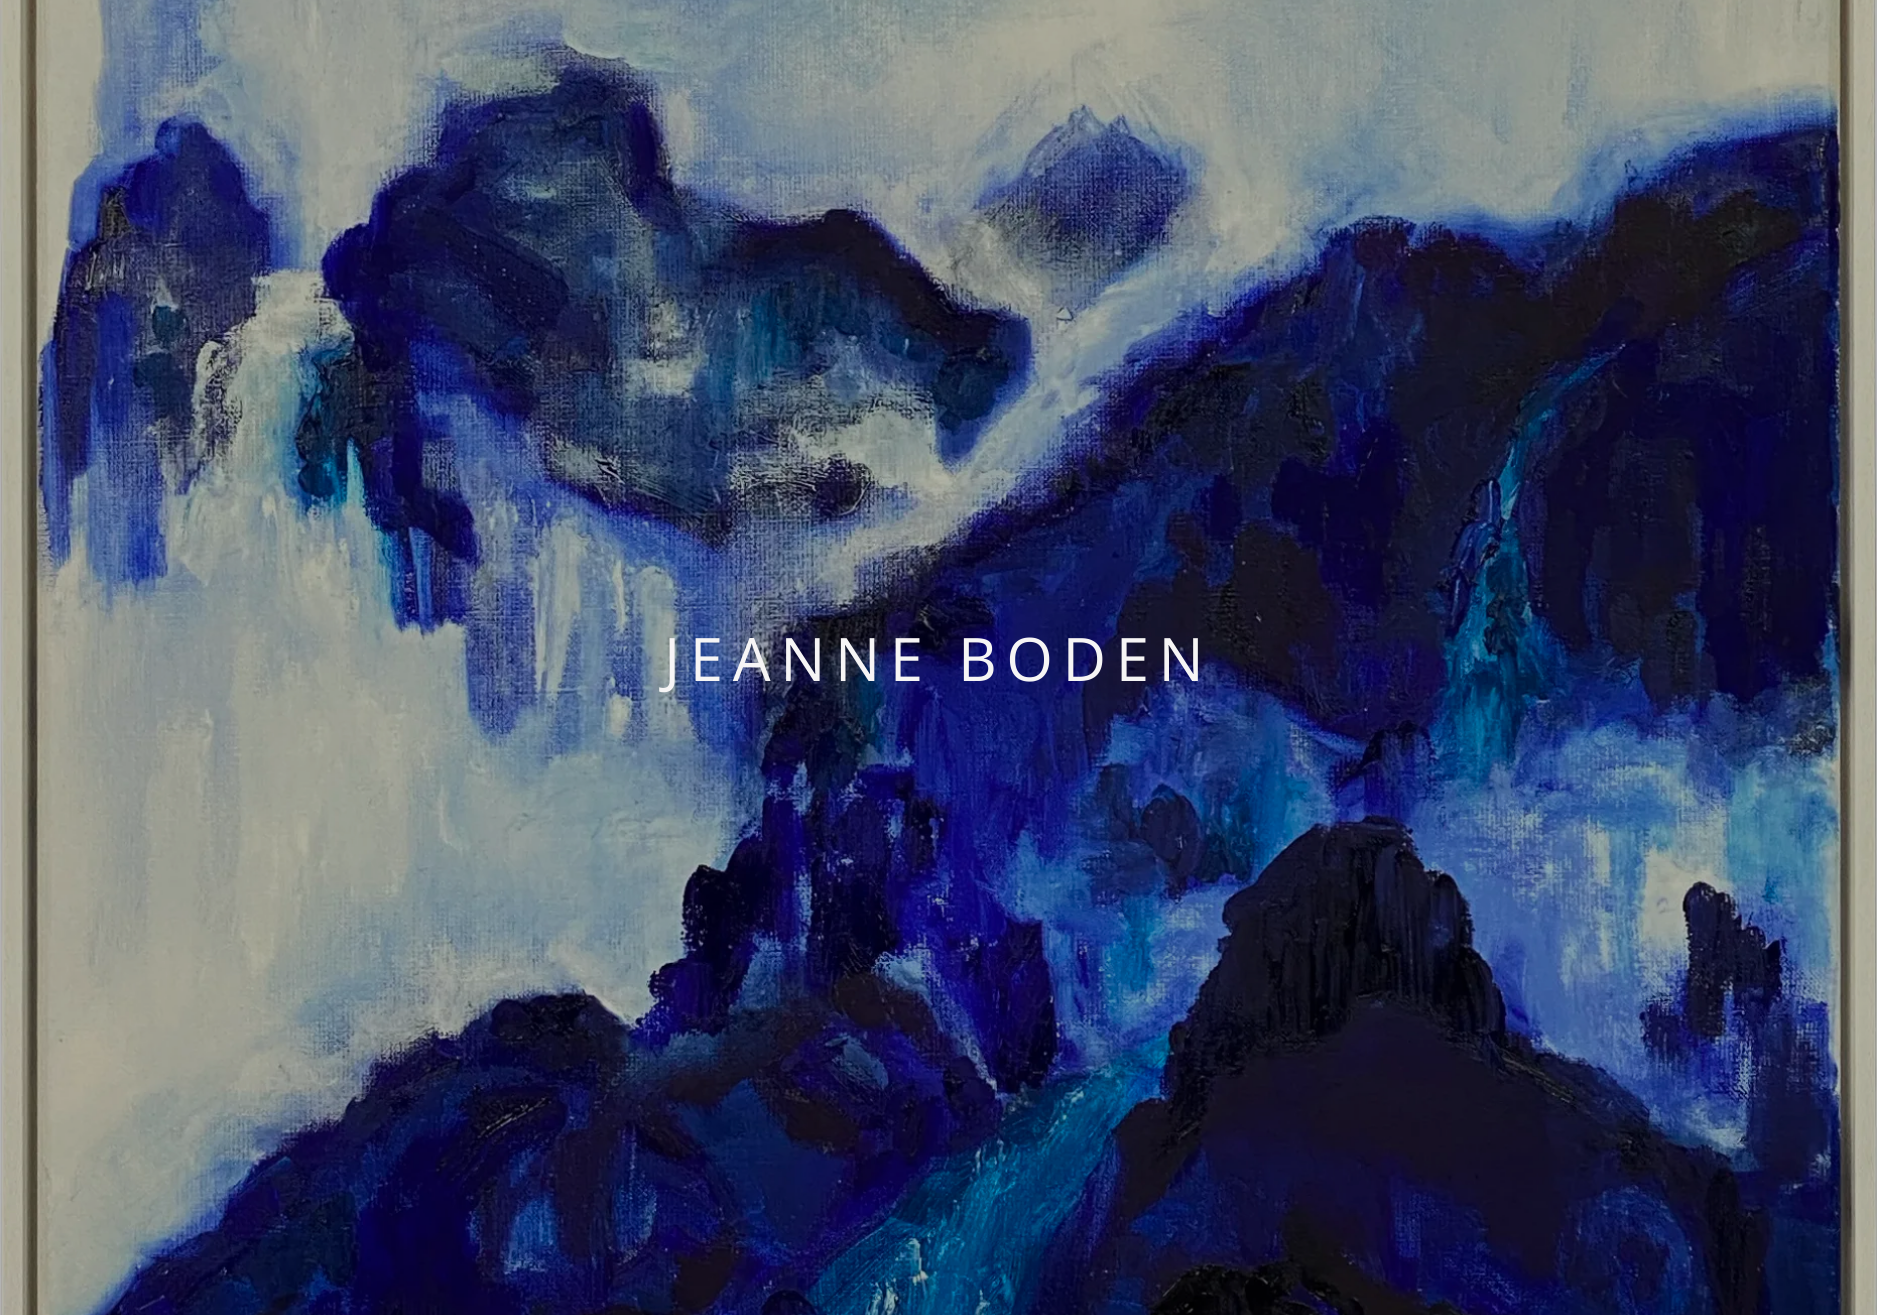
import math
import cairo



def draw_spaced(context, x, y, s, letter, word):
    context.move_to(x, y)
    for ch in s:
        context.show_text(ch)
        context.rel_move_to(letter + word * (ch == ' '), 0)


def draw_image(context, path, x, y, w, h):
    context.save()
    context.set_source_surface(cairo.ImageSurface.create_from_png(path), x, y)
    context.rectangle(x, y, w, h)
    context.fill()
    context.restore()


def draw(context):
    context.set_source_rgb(1, 1, 1)
    context.paint()
    draw_image(context, "images/1.png", 0, 0, 1877, 1315)
    context.select_font_face("Open Sans")
    context.set_font_size(60)
    context.set_source_rgb(246 / 255, 245 / 255, 245 / 255)
    draw_spaced(context, 664, 681, "JEANNE BODEN", 9.6, 0)


surface = cairo.ImageSurface(cairo.Format.RGB24, 1877, 1315)
context = cairo.Context(surface)
options = cairo.FontOptions()
options.set_hint_metrics(cairo.HintMetrics.OFF)
options.set_hint_style(cairo.HintStyle.NONE)
context.set_font_options(options)
context.set_miter_limit(4)
draw(context)
surface.write_to_png("out.png")
